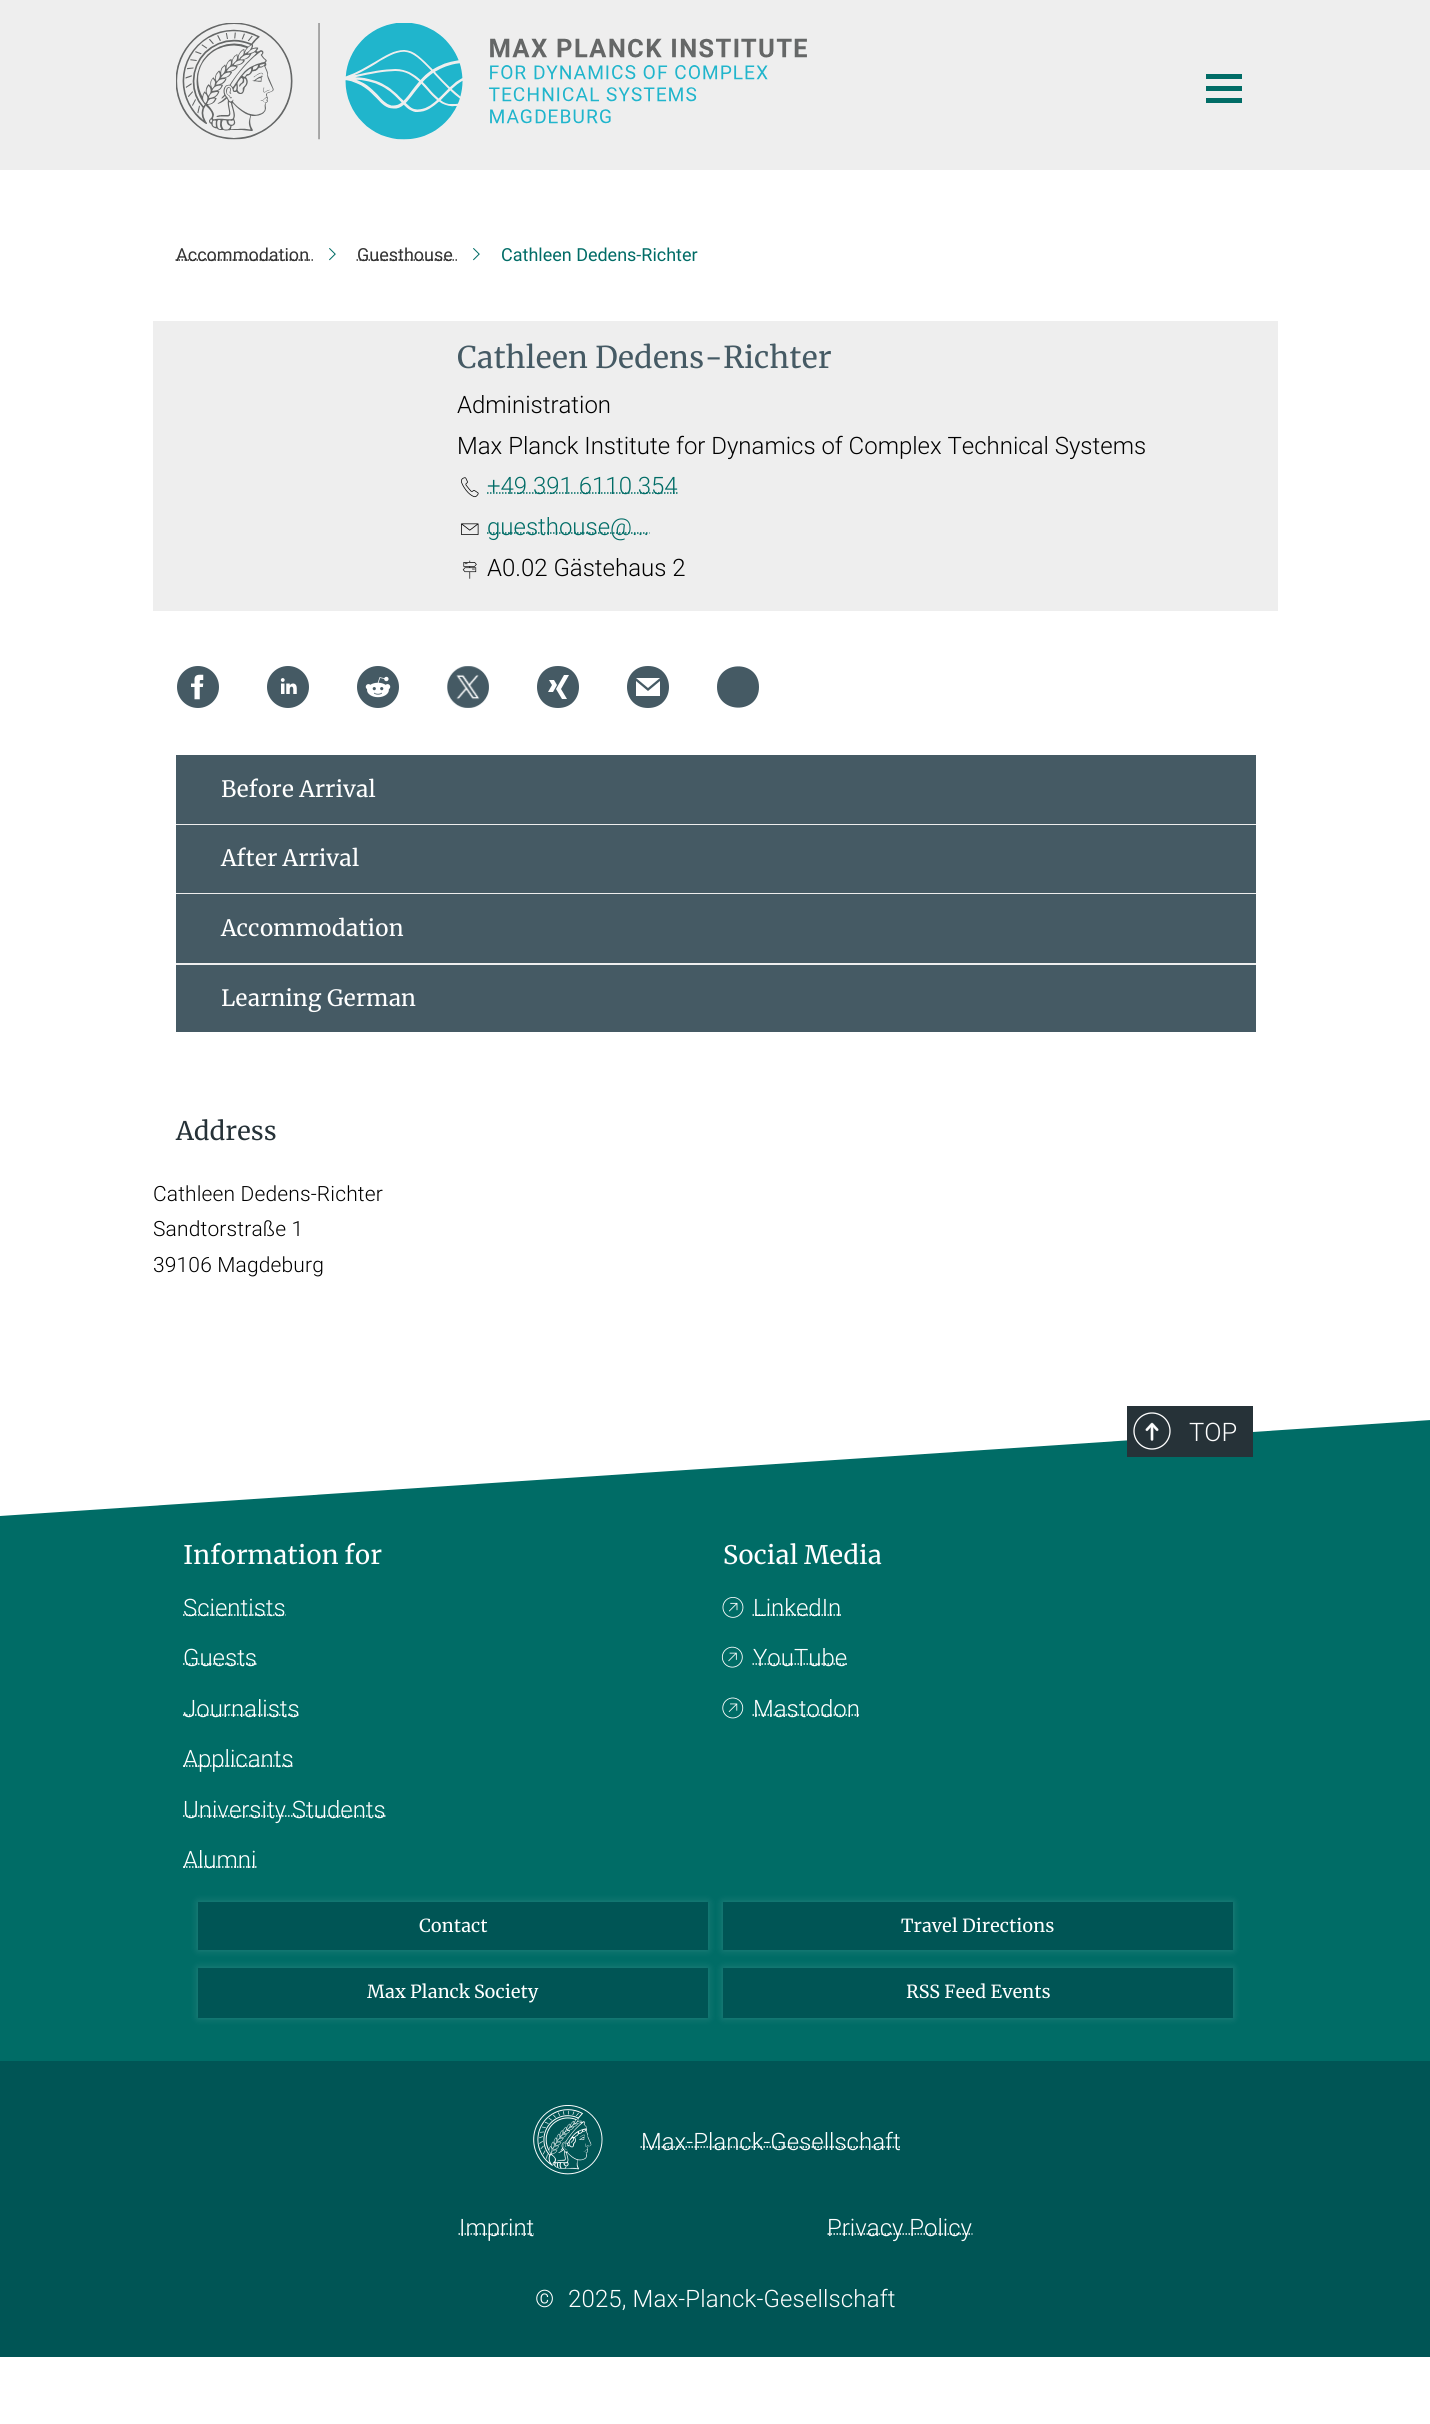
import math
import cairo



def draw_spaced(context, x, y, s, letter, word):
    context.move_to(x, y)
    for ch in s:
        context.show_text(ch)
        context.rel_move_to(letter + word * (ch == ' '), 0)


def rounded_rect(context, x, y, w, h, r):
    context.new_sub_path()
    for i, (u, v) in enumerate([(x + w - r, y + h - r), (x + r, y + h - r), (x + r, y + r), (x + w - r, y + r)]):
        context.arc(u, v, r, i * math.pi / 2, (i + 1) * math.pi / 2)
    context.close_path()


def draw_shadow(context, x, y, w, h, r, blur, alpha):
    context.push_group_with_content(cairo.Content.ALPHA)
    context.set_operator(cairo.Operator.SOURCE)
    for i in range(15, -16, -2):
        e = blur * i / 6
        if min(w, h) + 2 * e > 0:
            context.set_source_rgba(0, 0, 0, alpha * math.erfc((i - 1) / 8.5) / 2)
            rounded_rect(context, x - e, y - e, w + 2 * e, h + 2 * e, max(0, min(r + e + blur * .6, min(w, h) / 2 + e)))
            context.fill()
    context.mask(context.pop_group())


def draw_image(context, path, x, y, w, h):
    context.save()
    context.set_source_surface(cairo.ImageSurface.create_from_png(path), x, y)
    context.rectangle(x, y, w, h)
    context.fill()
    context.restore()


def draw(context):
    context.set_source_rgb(1, 1, 1)
    context.paint()
    context.set_source_rgb(238 / 255, 238 / 255, 238 / 255)
    context.rectangle(0, 0, 1430, 170)
    context.fill()
    draw_image(context, "images/1.png", 176, 23, 631, 117)
    context.set_source_rgb(0, 108 / 255, 102 / 255)
    context.rectangle(1206, 74, 36, 5)
    context.fill()
    context.rectangle(1206, 86, 36, 5)
    context.fill()
    context.rectangle(1206, 98, 36, 5)
    context.fill()
    context.new_path()
    context.move_to(175.5, 260)
    context.line_to(308.5, 260)
    context.set_source_rgb(51 / 255, 51 / 255, 51 / 255)
    context.set_line_width(1.5)
    context.set_dash([1.5, 1.5])
    context.stroke()
    context.new_path()
    context.move_to(308.5, 260)
    context.line_to(310, 260)
    context.move_to(311.5, 260)
    context.line_to(313, 260)
    context.set_dash([])
    context.stroke()
    draw_image(context, "images/2.png", 329, 248, 7, 13)
    context.new_path()
    context.move_to(356.5, 260)
    context.line_to(452.5, 260)
    context.set_dash([1.5, 1.5])
    context.stroke()
    context.new_path()
    context.move_to(452.5, 260)
    context.line_to(454, 260)
    context.move_to(455.5, 260)
    context.line_to(457, 260)
    context.set_dash([])
    context.stroke()
    draw_image(context, "images/2.png", 473, 248, 7, 13)
    context.set_source_rgb(238 / 255, 238 / 255, 238 / 255)
    context.rectangle(153, 321, 1125, 290)
    context.fill()
    draw_image(context, "images/3.png", 461, 477, 18, 21)
    context.new_path()
    context.move_to(487, 493)
    context.line_to(678, 493)
    context.set_source_rgb(0, 108 / 255, 102 / 255)
    context.set_dash([1.5, 1.5])
    context.stroke()
    draw_image(context, "images/4.png", 461, 523, 18, 12)
    context.new_path()
    context.move_to(487, 533)
    context.line_to(649.5, 533)
    context.stroke()
    draw_image(context, "images/5.png", 462, 560, 15, 19)
    draw_image(context, "images/6.png", 177, 666, 42, 42)
    draw_image(context, "images/7.png", 267, 666, 42, 42)
    draw_image(context, "images/8.png", 357, 666, 42, 42)
    draw_image(context, "images/9.png", 447, 666, 42, 42)
    context.set_source_rgb(69 / 255, 90 / 255, 100 / 255)
    context.new_path()
    context.move_to(558, 666)
    context.curve_to(530, 666, 530, 708, 558, 708)
    context.curve_to(586, 708, 586, 666, 558, 666)
    context.close_path()
    context.move_to(548, 692)
    context.line_to(552, 685)
    context.line_to(549, 680)
    context.line_to(554, 680)
    context.line_to(557, 685)
    context.line_to(553, 692)
    context.close_path()
    context.move_to(567, 699)
    context.line_to(562, 699)
    context.line_to(556, 689)
    context.line_to(564, 675)
    context.line_to(569, 675)
    context.line_to(561, 689)
    context.close_path()
    context.fill()
    context.new_path()
    context.move_to(648, 666)
    context.curve_to(620, 666, 620, 708, 648, 708)
    context.curve_to(676, 708, 676, 666, 648, 666)
    context.close_path()
    context.move_to(660, 678)
    context.line_to(648, 688)
    context.line_to(636, 678)
    context.close_path()
    context.move_to(660, 696)
    context.line_to(636, 696)
    context.line_to(636, 681)
    context.line_to(648, 691)
    context.line_to(660, 681)
    context.close_path()
    context.fill()
    context.new_path()
    context.move_to(759, 687)
    context.curve_to(759, 715, 717, 714, 717, 687)
    context.curve_to(717, 660, 759, 659, 759, 687)
    context.close_path()
    context.fill()
    context.rectangle(176, 755, 1080, 69)
    context.fill()
    context.set_source_rgb(238 / 255, 238 / 255, 238 / 255)
    context.rectangle(176, 824, 1080, 1)
    context.fill()
    context.set_source_rgb(69 / 255, 90 / 255, 100 / 255)
    context.rectangle(176, 825, 1080, 68)
    context.fill()
    context.set_source_rgb(238 / 255, 238 / 255, 238 / 255)
    context.rectangle(176, 893, 1080, 1)
    context.fill()
    context.set_source_rgb(69 / 255, 90 / 255, 100 / 255)
    context.rectangle(176, 894, 1080, 69)
    context.fill()
    context.set_source_rgb(238 / 255, 238 / 255, 238 / 255)
    context.rectangle(176, 963, 1080, 2)
    context.fill()
    context.set_source_rgb(69 / 255, 90 / 255, 100 / 255)
    context.rectangle(176, 965, 1080, 67)
    context.fill()
    context.set_source_rgb(0, 108 / 255, 102 / 255)
    context.rectangle(0, 1526, 1430, 535)
    context.fill()
    context.new_path()
    context.move_to(0, 1516)
    context.line_to(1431, 1420)
    context.line_to(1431, 1526)
    context.line_to(0, 1526)
    context.fill()
    context.set_source_rgb(38 / 255, 50 / 255, 56 / 255)
    context.rectangle(1127, 1406, 126, 51)
    context.fill()
    draw_image(context, "images/10.png", 1145, 1422, 14, 19)
    draw_image(context, "images/11.png", 1133, 1412, 38, 38)
    context.new_path()
    context.move_to(183, 1615)
    context.line_to(285.5, 1615)
    context.set_source_rgb(1, 1, 1)
    context.stroke()
    context.new_path()
    context.move_to(183, 1664)
    context.line_to(257, 1664)
    context.stroke()
    context.new_path()
    context.move_to(183, 1715)
    context.line_to(299.5, 1715)
    context.stroke()
    context.new_path()
    context.move_to(183, 1766)
    context.line_to(293.5, 1766)
    context.stroke()
    context.new_path()
    context.move_to(183, 1816)
    context.line_to(385.5, 1816)
    context.stroke()
    context.new_path()
    context.move_to(183, 1867)
    context.line_to(256.5, 1867)
    context.stroke()
    draw_image(context, "images/12.png", 722, 1597, 22, 21)
    context.new_path()
    context.move_to(752.5, 1615)
    context.line_to(841, 1615)
    context.stroke()
    draw_image(context, "images/13.png", 721, 1646, 22, 22)
    context.new_path()
    context.move_to(752.5, 1664)
    context.line_to(847, 1664)
    context.stroke()
    draw_image(context, "images/14.png", 722, 1697, 22, 22)
    context.new_path()
    context.move_to(752.5, 1715)
    context.line_to(859.5, 1715)
    context.stroke()
    context.set_source_rgb(1, 1, 1)
    draw_shadow(context, 198, 1902, 510, 48, 0, 4, 0.15)
    context.set_source_rgb(0, 85 / 255, 85 / 255)
    context.rectangle(198, 1902, 510, 48)
    context.fill()
    context.set_source_rgb(1, 1, 1)
    draw_shadow(context, 723, 1902, 510, 48, 0, 4, 0.15)
    context.set_source_rgb(0, 85 / 255, 85 / 255)
    context.rectangle(723, 1902, 510, 48)
    context.fill()
    context.set_source_rgb(1, 1, 1)
    draw_shadow(context, 198, 1968, 510, 50, 0, 4, 0.15)
    context.set_source_rgb(0, 85 / 255, 85 / 255)
    context.rectangle(198, 1968, 510, 50)
    context.fill()
    context.set_source_rgb(1, 1, 1)
    draw_shadow(context, 723, 1968, 510, 50, 0, 4, 0.15)
    context.set_source_rgb(0, 85 / 255, 85 / 255)
    context.rectangle(723, 1968, 510, 50)
    context.fill()
    context.rectangle(0, 2061, 1430, 296)
    context.fill()
    draw_image(context, "images/15.png", 533, 2105, 70, 70)
    context.new_path()
    context.move_to(640.5, 2147)
    context.line_to(900, 2147)
    context.set_source_rgb(1, 1, 1)
    context.stroke()
    context.new_path()
    context.move_to(458.5, 2234)
    context.line_to(534, 2234)
    context.stroke()
    context.new_path()
    context.move_to(827.5, 2234)
    context.line_to(972.5, 2234)
    context.stroke()
    context.select_font_face("Roboto")
    context.set_font_size(18)
    context.set_source_rgb(51 / 255, 51 / 255, 51 / 255)
    context.move_to(176, 261)
    context.show_text("Accommodation")
    context.move_to(357, 261)
    context.show_text("Guesthouse")
    context.set_source_rgb(0, 108 / 255, 102 / 255)
    context.move_to(501, 261)
    context.show_text("Cathleen Dedens-Richter")
    context.select_font_face("Merriweather")
    context.set_font_size(30)
    context.set_source_rgb(69 / 255, 90 / 255, 100 / 255)
    context.move_to(457, 368)
    context.show_text("Cathleen Dedens-Richter")
    context.select_font_face("Roboto Light")
    context.set_font_size(24)
    context.set_source_rgb(0, 0, 0)
    context.move_to(457, 413)
    context.show_text("Administration")
    context.move_to(457, 454)
    context.show_text("Max Planck Institute for Dynamics of Complex Technical Systems")
    context.set_source_rgb(0, 108 / 255, 102 / 255)
    context.move_to(487, 494)
    context.show_text("+49 391 6110 354")
    context.move_to(487, 535)
    context.show_text("guesthouse@...")
    context.set_source_rgb(0, 0, 0)
    context.move_to(487, 576)
    context.show_text("A0.02 Gästehaus 2")
    context.select_font_face("Merriweather")
    context.set_font_size(22.5)
    context.set_source_rgb(1, 1, 1)
    context.move_to(221, 797)
    context.show_text("Before Arrival")
    context.move_to(221, 866)
    context.show_text("After Arrival")
    context.move_to(221, 936)
    context.show_text("Accommodation")
    context.move_to(221, 1006)
    context.show_text("Learning German")
    context.set_font_size(25.5)
    context.set_source_rgb(38 / 255, 50 / 255, 56 / 255)
    context.move_to(176, 1140)
    context.show_text("Address")
    context.select_font_face("Roboto Light")
    context.set_font_size(21)
    context.set_source_rgb(0, 0, 0)
    draw_spaced(context, 153, 1201, "Cathleen Dedens-Richter", 0.15, 0)
    draw_spaced(context, 153, 1236, "Sandtorstraße 1", 0.15, 0)
    draw_spaced(context, 153, 1272, "39106 Magdeburg", 0.15, 0)
    context.set_font_size(25.5)
    context.set_source_rgb(1, 1, 1)
    context.move_to(1189, 1441)
    context.show_text("TOP")
    context.select_font_face("Merriweather")
    context.move_to(183, 1564)
    context.show_text("Information for")
    context.select_font_face("Roboto Light")
    context.set_font_size(24)
    context.move_to(183, 1616)
    context.show_text("Scientists")
    context.move_to(183, 1666)
    context.show_text("Guests")
    context.move_to(183, 1717)
    context.show_text("Journalists")
    context.move_to(183, 1767)
    context.show_text("Applicants")
    context.move_to(183, 1818)
    context.show_text("University Students")
    context.move_to(183, 1868)
    context.show_text("Alumni")
    context.select_font_face("Merriweather")
    context.set_font_size(25.5)
    context.move_to(723, 1564)
    context.show_text("Social Media")
    context.select_font_face("Roboto Light")
    context.set_font_size(24)
    context.move_to(753, 1616)
    context.show_text("LinkedIn")
    context.move_to(753, 1666)
    context.show_text("YouTube")
    context.move_to(753, 1717)
    context.show_text("Mastodon")
    context.select_font_face("Merriweather")
    context.set_font_size(18)
    context.move_to(419, 1932)
    context.show_text("Contact")
    context.move_to(901, 1932)
    context.show_text("Travel Directions")
    context.move_to(367, 1998)
    context.show_text("Max Planck Society")
    context.move_to(906, 1998)
    context.show_text("RSS Feed Events")
    context.select_font_face("Roboto Light")
    context.set_font_size(24)
    context.move_to(641, 2150)
    context.show_text("Max-Planck-Gesellschaft")
    context.move_to(459, 2236)
    context.show_text("Imprint")
    context.move_to(827, 2236)
    context.show_text("Privacy Policy")
    context.move_to(535, 2307)
    context.show_text("©")
    draw_spaced(context, 568, 2307, "2025, Max-Planck-Gesellschaft", 0.15, 0)


surface = cairo.ImageSurface(cairo.Format.RGB24, 1430, 2424)
context = cairo.Context(surface)
options = cairo.FontOptions()
options.set_hint_metrics(cairo.HintMetrics.OFF)
options.set_hint_style(cairo.HintStyle.NONE)
context.set_font_options(options)
context.set_miter_limit(4)
draw(context)
surface.write_to_png("out.png")
